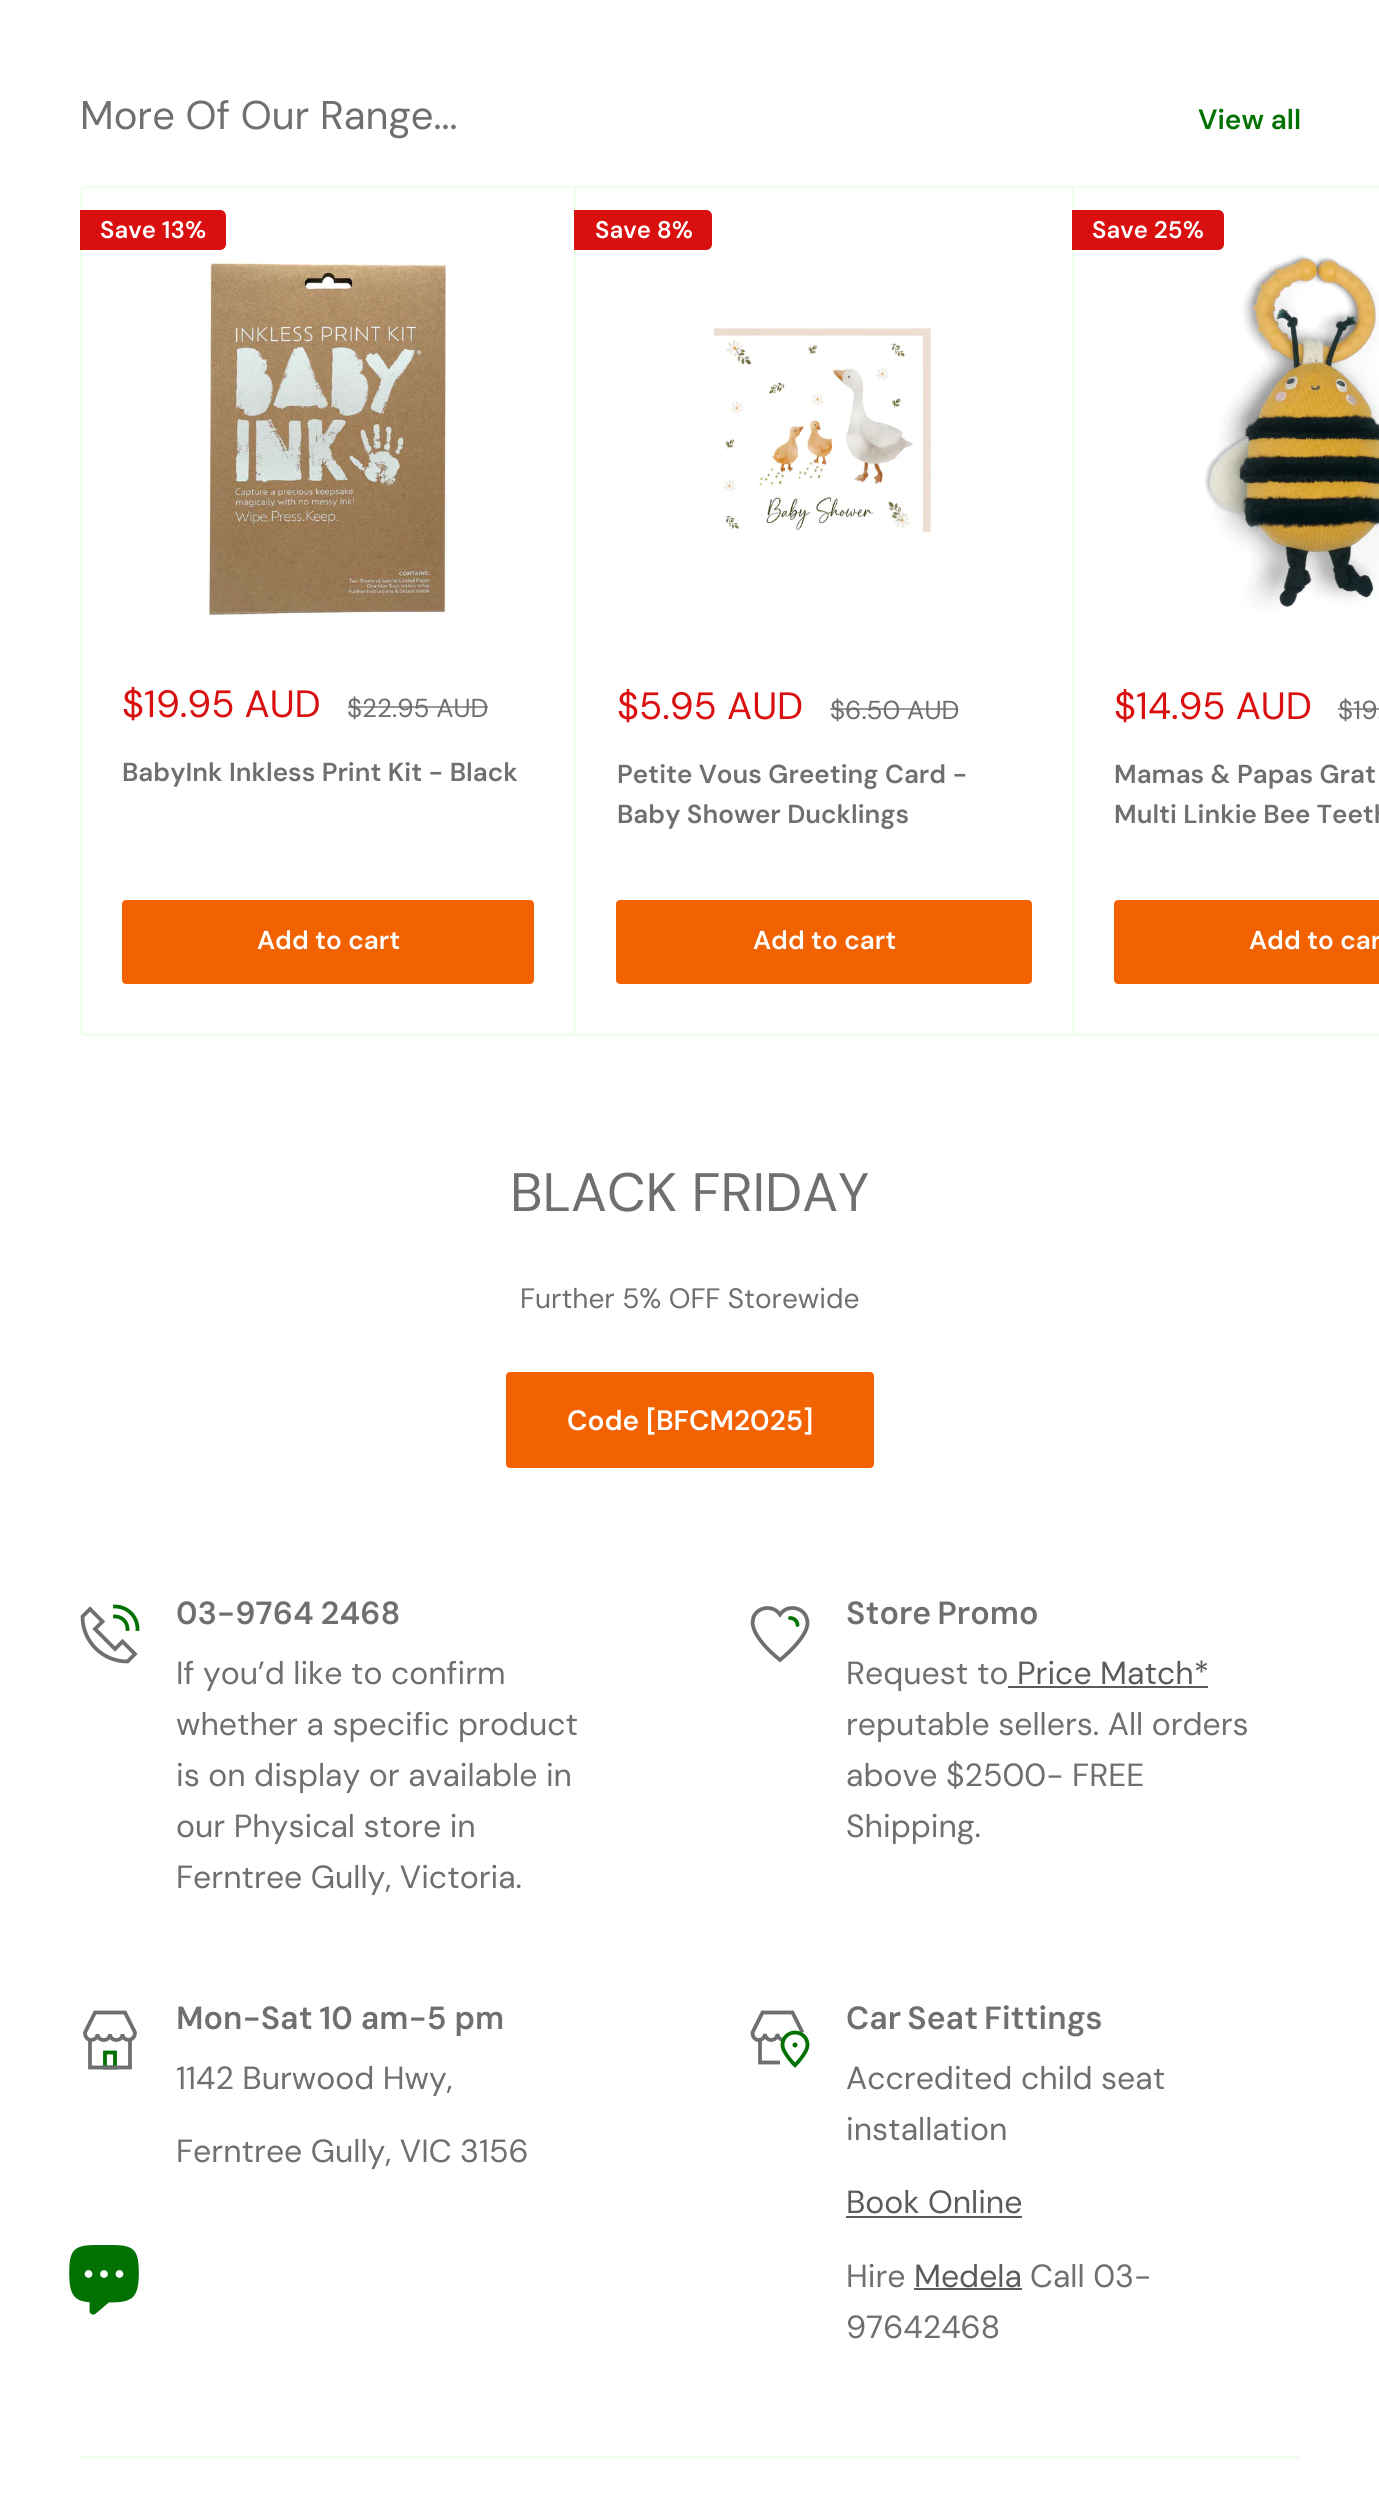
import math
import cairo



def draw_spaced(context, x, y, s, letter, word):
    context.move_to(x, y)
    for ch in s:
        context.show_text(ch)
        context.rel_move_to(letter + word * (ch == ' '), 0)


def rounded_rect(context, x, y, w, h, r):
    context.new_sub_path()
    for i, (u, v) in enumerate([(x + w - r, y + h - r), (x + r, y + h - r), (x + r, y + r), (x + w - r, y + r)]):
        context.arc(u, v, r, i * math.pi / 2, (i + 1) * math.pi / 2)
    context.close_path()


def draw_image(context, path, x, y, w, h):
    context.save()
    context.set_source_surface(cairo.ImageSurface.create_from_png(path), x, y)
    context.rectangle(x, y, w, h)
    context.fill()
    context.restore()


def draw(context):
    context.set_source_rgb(1, 1, 1)
    context.paint()
    context.new_path()
    context.move_to(86, 187)
    context.line_to(575, 187)
    context.line_to(575, 1035)
    context.line_to(86, 1035)
    context.curve_to(83, 1035, 81, 1033, 81, 1030)
    context.line_to(81, 192)
    context.curve_to(81, 189, 83, 187, 86, 187)
    context.close_path()
    context.set_source_rgb(235 / 255, 1, 233 / 255)
    context.stroke()
    context.set_source_rgb(218 / 255, 16 / 255, 16 / 255)
    context.new_path()
    context.move_to(80, 210)
    context.line_to(220, 210)
    context.curve_to(223.5, 210, 226, 212.5, 226, 216)
    context.line_to(226, 244)
    context.curve_to(226, 247.5, 223.5, 250, 220, 250)
    context.line_to(80, 250)
    context.close_path()
    context.fill()
    draw_image(context, "images/1.png", 208, 261, 239, 356)
    context.set_source_rgb(242 / 255, 98 / 255, 0)
    rounded_rect(context, 122, 900, 412, 84, 4)
    context.fill()
    context.set_source_rgb(235 / 255, 1, 233 / 255)
    context.rectangle(82, 1034, 3, 2)
    context.fill()
    context.rectangle(576, 186, 803, 2)
    context.fill()
    context.rectangle(1072, 186, 2, 850)
    context.fill()
    context.rectangle(576, 1034, 803, 2)
    context.fill()
    context.set_source_rgb(218 / 255, 16 / 255, 16 / 255)
    context.new_path()
    context.move_to(574, 210)
    context.line_to(706, 210)
    context.curve_to(709.5, 210, 712, 212.5, 712, 216)
    context.line_to(712, 244)
    context.curve_to(712, 247.5, 709.5, 250, 706, 250)
    context.line_to(574, 250)
    context.close_path()
    context.fill()
    draw_image(context, "images/2.png", 713, 328, 219, 205)
    context.set_source_rgb(242 / 255, 98 / 255, 0)
    rounded_rect(context, 616, 900, 416, 84, 4)
    context.fill()
    context.set_source_rgb(218 / 255, 16 / 255, 16 / 255)
    context.new_path()
    context.move_to(1072, 210)
    context.line_to(1218, 210)
    context.curve_to(1221.5, 210, 1224, 212.5, 1224, 216)
    context.line_to(1224, 244)
    context.curve_to(1224, 247.5, 1221.5, 250, 1218, 250)
    context.line_to(1072, 250)
    context.close_path()
    context.fill()
    draw_image(context, "images/3.png", 1204, 255, 175, 356)
    context.set_source_rgb(242 / 255, 98 / 255, 0)
    context.new_path()
    context.move_to(1118, 900)
    context.line_to(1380, 900)
    context.line_to(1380, 984)
    context.line_to(1118, 984)
    context.curve_to(1116, 984, 1114, 982, 1114, 980)
    context.line_to(1114, 904)
    context.curve_to(1114, 902, 1116, 900, 1118, 900)
    context.close_path()
    context.fill()
    rounded_rect(context, 506, 1372, 368, 96, 4)
    context.fill()
    draw_image(context, "images/4.png", 69, 2245, 70, 70)
    context.new_path()
    context.move_to(122.5, 1641.5)
    context.line_to(115, 1649)
    context.line_to(95, 1629)
    context.line_to(102.5, 1621.5)
    context.line_to(90, 1609)
    context.line_to(82.5, 1616.5)
    context.curve_to(82.5, 1641.5, 102.5, 1661.5, 127.5, 1661.5)
    context.line_to(135, 1654)
    context.close_path()
    context.set_source_rgb(109 / 255, 111 / 255, 112 / 255)
    context.set_line_width(3.8)
    context.set_line_cap(cairo.LineCap.SQUARE)
    context.stroke()
    context.new_path()
    context.move_to(115, 1606.5)
    context.curve_to(127.5, 1606.5, 137.5, 1616.5, 137.5, 1629)
    context.move_to(115, 1616.5)
    context.curve_to(122, 1616.5, 127.5, 1622, 127.5, 1629)
    context.set_source_rgb(1 / 255, 113 / 255, 1 / 255)
    context.stroke()
    context.new_path()
    context.move_to(792.5, 1608)
    context.curve_to(787, 1608, 783, 1610.5, 780, 1614.5)
    context.curve_to(773.5, 1605, 758.5, 1606, 753.5, 1617)
    context.line_to(752.5, 1623)
    context.curve_to(754, 1637, 769.5, 1651.5, 780, 1660)
    context.curve_to(780, 1660, 807.5, 1638, 807.5, 1623)
    context.curve_to(807.5, 1614.5, 801, 1608, 792.5, 1608)
    context.close_path()
    context.set_source_rgb(109 / 255, 111 / 255, 112 / 255)
    context.stroke()
    context.new_path()
    context.move_to(790, 1618)
    context.curve_to(794, 1618, 797.5, 1621, 797.5, 1625)
    context.set_source_rgb(1 / 255, 113 / 255, 1 / 255)
    context.set_line_cap(cairo.LineCap.ROUND)
    context.stroke()
    context.set_source_rgb(90 / 255, 92 / 255, 91 / 255)
    context.rectangle(1008, 1686, 200, 2)
    context.fill()
    context.new_path()
    context.move_to(105, 2052.5)
    context.line_to(115, 2052.5)
    context.line_to(115, 2067.5)
    context.line_to(105, 2067.5)
    context.close_path()
    context.set_source_rgb(1 / 255, 113 / 255, 1 / 255)
    context.set_line_cap(cairo.LineCap.BUTT)
    context.stroke()
    context.new_path()
    context.move_to(90, 2040)
    context.line_to(90, 2067.5)
    context.line_to(130, 2067.5)
    context.line_to(130, 2040)
    context.move_to(135, 2032.5)
    context.curve_to(135, 2042, 122.5, 2042, 122.5, 2034)
    context.curve_to(122.5, 2042, 110, 2042, 110, 2034)
    context.curve_to(110, 2042, 97.5, 2042, 97.5, 2034)
    context.curve_to(97.5, 2037, 95, 2040, 91, 2040)
    context.curve_to(88, 2040, 85, 2037.5, 85, 2032.5)
    context.line_to(95, 2012.5)
    context.line_to(125, 2012.5)
    context.close_path()
    context.set_source_rgb(109 / 255, 111 / 255, 112 / 255)
    context.set_line_cap(cairo.LineCap.SQUARE)
    context.stroke()
    draw_image(context, "images/5.png", 750, 2010, 60, 58)
    context.set_source_rgb(90 / 255, 92 / 255, 91 / 255)
    context.rectangle(846, 2216, 176, 2)
    context.fill()
    context.rectangle(914, 2288, 108, 2)
    context.fill()
    context.set_source_rgb(235 / 255, 1, 233 / 255)
    context.rectangle(80, 2456, 1220, 2)
    context.fill()
    context.select_font_face("DM Sans")
    context.set_font_size(40)
    context.set_source_rgb(109 / 255, 111 / 255, 112 / 255)
    context.move_to(80, 129)
    context.show_text("More Of Our Range...")
    context.select_font_face("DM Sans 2 SemiBold")
    context.set_font_size(28)
    context.set_source_rgb(1 / 255, 113 / 255, 1 / 255)
    context.move_to(1198, 129)
    context.show_text("View all")
    context.select_font_face("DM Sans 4 SemiBold")
    context.set_font_size(24)
    context.set_source_rgb(1, 1, 1)
    context.move_to(100, 238)
    context.show_text("Save 13%")
    context.select_font_face("DM Sans")
    context.set_font_size(38)
    context.set_source_rgb(218 / 255, 16 / 255, 16 / 255)
    context.move_to(122, 717)
    context.show_text("$19.95 AUD")
    context.set_font_size(26)
    context.set_source_rgb(109 / 255, 111 / 255, 112 / 255)
    context.move_to(347, 717)
    context.show_text("$22.95 AUD")
    context.set_source_rgba(109 / 255, 111 / 255, 112 / 255, 0.7)
    context.rectangle(348, 706, 140, 2)
    context.fill()
    context.select_font_face("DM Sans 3 SemiBold")
    context.set_source_rgb(109 / 255, 111 / 255, 112 / 255)
    context.move_to(122, 781)
    context.show_text("BabyInk Inkless Print Kit - Black")
    context.set_source_rgb(1, 1, 1)
    context.move_to(257, 949)
    context.show_text("Add to cart")
    context.select_font_face("DM Sans 4 SemiBold")
    context.set_font_size(24)
    context.move_to(595, 238)
    context.show_text("Save 8%")
    context.select_font_face("DM Sans")
    context.set_font_size(38)
    context.set_source_rgb(218 / 255, 16 / 255, 16 / 255)
    context.move_to(617, 719)
    context.show_text("$5.95 AUD")
    context.set_font_size(26)
    context.set_source_rgb(109 / 255, 111 / 255, 112 / 255)
    context.move_to(830, 719)
    context.show_text("$6.50 AUD")
    context.set_source_rgba(109 / 255, 111 / 255, 112 / 255, 0.7)
    context.rectangle(830, 708, 128, 2)
    context.fill()
    context.select_font_face("DM Sans 3 SemiBold")
    context.set_source_rgb(109 / 255, 111 / 255, 112 / 255)
    context.move_to(617, 783)
    context.show_text("Petite Vous Greeting Card -")
    context.move_to(617, 823)
    context.show_text("Baby Shower Ducklings")
    context.set_source_rgb(1, 1, 1)
    context.move_to(753, 949)
    context.show_text("Add to cart")
    context.select_font_face("DM Sans 4 SemiBold")
    context.set_font_size(24)
    context.move_to(1092, 238)
    context.show_text("Save 25%")
    context.select_font_face("DM Sans")
    context.set_font_size(38)
    context.set_source_rgb(218 / 255, 16 / 255, 16 / 255)
    context.move_to(1114, 719)
    context.show_text("$14.95 AUD")
    context.set_font_size(26)
    context.set_source_rgb(109 / 255, 111 / 255, 112 / 255)
    context.move_to(1338, 719)
    context.show_text("$19.")
    context.set_source_rgba(109 / 255, 111 / 255, 112 / 255, 0.7)
    context.rectangle(1338, 708, 41, 2)
    context.fill()
    context.select_font_face("DM Sans 3 SemiBold")
    context.set_source_rgb(109 / 255, 111 / 255, 112 / 255)
    context.move_to(1114, 783)
    context.show_text("Mamas & Papas Grat")
    context.move_to(1114, 823)
    context.show_text("Multi Linkie Bee Teeth")
    context.set_source_rgb(1, 1, 1)
    context.move_to(1249, 949)
    context.show_text("Add to car")
    context.select_font_face("DM Sans")
    context.set_font_size(54)
    context.set_source_rgb(109 / 255, 111 / 255, 112 / 255)
    context.move_to(510, 1211)
    context.show_text("BLACK FRIDAY")
    context.set_font_size(28)
    context.move_to(520, 1308)
    context.show_text("Further 5% OFF Storewide")
    context.select_font_face("DM Sans 2 SemiBold")
    context.set_source_rgb(1, 1, 1)
    context.move_to(567, 1430)
    context.show_text("Code [BFCM2025]")
    context.select_font_face("DM Sans SemiBold")
    context.set_font_size(32)
    context.set_source_rgb(109 / 255, 111 / 255, 112 / 255)
    draw_spaced(context, 176, 1624, "03-9764 2468", 0, -1)
    context.select_font_face("DM Sans")
    context.move_to(176, 1684)
    context.show_text("If you’d like to confirm")
    context.move_to(176, 1735)
    context.show_text("whether a specific product")
    context.move_to(176, 1786)
    context.show_text("is on display or available in")
    context.move_to(176, 1837)
    context.show_text("our Physical store in")
    context.move_to(176, 1888)
    context.show_text("Ferntree Gully, Victoria.")
    context.select_font_face("DM Sans SemiBold")
    draw_spaced(context, 846, 1624, "Store Promo", 0, -2)
    context.select_font_face("DM Sans")
    context.move_to(846, 1684)
    context.show_text("Request to")
    context.set_source_rgb(90 / 255, 92 / 255, 91 / 255)
    context.move_to(1017, 1684)
    context.show_text("Price Match*")
    context.set_source_rgb(109 / 255, 111 / 255, 112 / 255)
    context.move_to(846, 1735)
    context.show_text("reputable sellers. All orders")
    context.move_to(846, 1786)
    context.show_text("above $2500- FREE")
    context.move_to(846, 1837)
    context.show_text("Shipping.")
    context.select_font_face("DM Sans SemiBold")
    context.move_to(176, 2029)
    context.show_text("Mon-Sat")
    context.move_to(319, 2029)
    context.show_text("10 am-5 pm")
    context.select_font_face("DM Sans")
    context.move_to(176, 2089)
    context.show_text("1142 Burwood Hwy,")
    context.move_to(176, 2162)
    context.show_text("Ferntree Gully, VIC 3156")
    context.select_font_face("DM Sans SemiBold")
    draw_spaced(context, 846, 2029, "Car Seat Fittings", 0, -2)
    context.select_font_face("DM Sans")
    context.move_to(846, 2089)
    context.show_text("Accredited child seat")
    context.move_to(846, 2140)
    context.show_text("installation")
    context.set_source_rgb(90 / 255, 92 / 255, 91 / 255)
    context.move_to(846, 2213)
    context.show_text("Book Online")
    context.set_source_rgb(109 / 255, 111 / 255, 112 / 255)
    context.move_to(846, 2287)
    context.show_text("Hire")
    context.set_source_rgb(90 / 255, 92 / 255, 91 / 255)
    context.move_to(914, 2287)
    context.show_text("Medela")
    context.set_source_rgb(109 / 255, 111 / 255, 112 / 255)
    context.move_to(1030, 2287)
    context.show_text("Call 03-")
    context.move_to(846, 2338)
    context.show_text("97642468")


surface = cairo.ImageSurface(cairo.Format.RGB24, 1379, 2504)
context = cairo.Context(surface)
options = cairo.FontOptions()
options.set_hint_metrics(cairo.HintMetrics.OFF)
options.set_hint_style(cairo.HintStyle.NONE)
context.set_font_options(options)
context.set_miter_limit(4)
draw(context)
surface.write_to_png("out.png")
